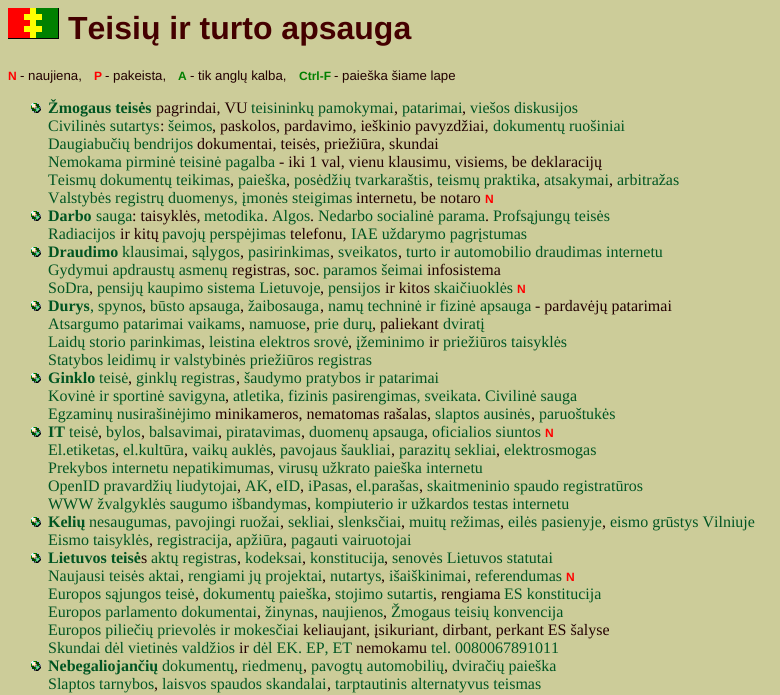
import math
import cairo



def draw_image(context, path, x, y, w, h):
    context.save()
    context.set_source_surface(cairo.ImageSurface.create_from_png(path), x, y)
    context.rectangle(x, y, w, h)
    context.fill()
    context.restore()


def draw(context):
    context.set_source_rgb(204 / 255, 204 / 255, 153 / 255)
    context.paint()
    draw_image(context, "images/1.png", 8, 8, 51, 31)
    draw_image(context, "images/2.png", 31, 103, 10, 10)
    draw_image(context, "images/2.png", 31, 211, 10, 10)
    draw_image(context, "images/2.png", 31, 247, 10, 10)
    draw_image(context, "images/2.png", 31, 301, 10, 10)
    draw_image(context, "images/2.png", 31, 373, 10, 10)
    draw_image(context, "images/2.png", 31, 427, 10, 10)
    draw_image(context, "images/2.png", 31, 517, 10, 10)
    draw_image(context, "images/2.png", 31, 553, 10, 10)
    draw_image(context, "images/2.png", 31, 661, 10, 10)
    context.select_font_face("Liberation Sans", cairo.FontSlant.NORMAL, cairo.FontWeight.BOLD)
    context.set_font_size(32)
    context.set_source_rgb(68 / 255, 0, 0)
    context.move_to(68, 39)
    context.show_text("Teisių ir turto apsauga")
    context.set_font_size(12)
    context.set_source_rgb(1, 0, 0)
    context.move_to(8, 80)
    context.show_text("N")
    context.select_font_face("Liberation Sans")
    context.set_font_size(13.25)
    context.set_source_rgb(34 / 255, 0, 0)
    context.move_to(20, 80)
    context.show_text("- naujiena,")
    context.select_font_face("Liberation Sans", cairo.FontSlant.NORMAL, cairo.FontWeight.BOLD)
    context.set_font_size(12)
    context.set_source_rgb(1, 0, 0)
    context.move_to(94, 80)
    context.show_text("P")
    context.select_font_face("Liberation Sans")
    context.set_font_size(13.25)
    context.set_source_rgb(34 / 255, 0, 0)
    context.move_to(105, 80)
    context.show_text("- pakeista,")
    context.select_font_face("Liberation Sans", cairo.FontSlant.NORMAL, cairo.FontWeight.BOLD)
    context.set_font_size(12)
    context.set_source_rgb(0, 128 / 255, 0)
    context.move_to(178, 80)
    context.show_text("A")
    context.select_font_face("Liberation Sans")
    context.set_font_size(13.25)
    context.set_source_rgb(34 / 255, 0, 0)
    context.move_to(190, 80)
    context.show_text("- tik anglų kalba,")
    context.select_font_face("Liberation Sans", cairo.FontSlant.NORMAL, cairo.FontWeight.BOLD)
    context.set_font_size(12)
    context.set_source_rgb(0, 128 / 255, 0)
    context.move_to(299, 80)
    context.show_text("Ctrl-F")
    context.select_font_face("Liberation Sans")
    context.set_font_size(13.25)
    context.set_source_rgb(34 / 255, 0, 0)
    context.move_to(334, 80)
    context.show_text("- paieška šiame lape")
    context.select_font_face("Liberation Serif", cairo.FontSlant.NORMAL, cairo.FontWeight.BOLD)
    context.set_font_size(16)
    context.set_source_rgb(0, 85 / 255, 34 / 255)
    context.move_to(48, 113)
    context.show_text("Žmogaus teisės")
    context.select_font_face("Liberation Serif")
    context.set_source_rgb(34 / 255, 0, 0)
    context.move_to(156, 113)
    context.show_text("pagrindai, VU")
    context.set_source_rgb(0, 85 / 255, 34 / 255)
    context.move_to(251, 113)
    context.show_text("teisininkų pamokymai")
    context.set_source_rgb(34 / 255, 0, 0)
    context.move_to(394, 113)
    context.show_text(",")
    context.set_source_rgb(0, 85 / 255, 34 / 255)
    context.move_to(402, 113)
    context.show_text("patarimai")
    context.set_source_rgb(34 / 255, 0, 0)
    context.move_to(462, 113)
    context.show_text(",")
    context.set_source_rgb(0, 85 / 255, 34 / 255)
    context.move_to(470, 113)
    context.show_text("viešos diskusijos")
    context.move_to(48, 131)
    context.show_text("Civilinės sutartys")
    context.set_source_rgb(34 / 255, 0, 0)
    context.move_to(160, 131)
    context.show_text(":")
    context.set_source_rgb(0, 85 / 255, 34 / 255)
    context.move_to(168, 131)
    context.show_text("šeimos")
    context.set_source_rgb(34 / 255, 0, 0)
    context.move_to(212, 131)
    context.show_text(", paskolos, pardavimo, ieškinio pavyzdžiai,")
    context.set_source_rgb(0, 85 / 255, 34 / 255)
    context.move_to(493, 131)
    context.show_text("dokumentų ruošiniai")
    context.move_to(48, 149)
    context.show_text("Daugiabučių bendrijos")
    context.set_source_rgb(34 / 255, 0, 0)
    context.move_to(197, 149)
    context.show_text("dokumentai, teisės, priežiūra, skundai")
    context.set_source_rgb(0, 85 / 255, 34 / 255)
    context.move_to(48, 167)
    context.show_text("Nemokama pirminė teisinė pagalba")
    context.set_source_rgb(34 / 255, 0, 0)
    context.move_to(279, 167)
    context.show_text("- iki 1 val, vienu klausimu, visiems, be deklaracijų")
    context.set_source_rgb(0, 85 / 255, 34 / 255)
    context.move_to(48, 185)
    context.show_text("Teismų dokumentų teikimas")
    context.set_source_rgb(34 / 255, 0, 0)
    context.move_to(230, 185)
    context.show_text(",")
    context.set_source_rgb(0, 85 / 255, 34 / 255)
    context.move_to(238, 185)
    context.show_text("paieška")
    context.set_source_rgb(34 / 255, 0, 0)
    context.move_to(286, 185)
    context.show_text(",")
    context.set_source_rgb(0, 85 / 255, 34 / 255)
    context.move_to(294, 185)
    context.show_text("posėdžių tvarkaraštis")
    context.set_source_rgb(34 / 255, 0, 0)
    context.move_to(429, 185)
    context.show_text(",")
    context.set_source_rgb(0, 85 / 255, 34 / 255)
    context.move_to(437, 185)
    context.show_text("teismų praktika")
    context.set_source_rgb(34 / 255, 0, 0)
    context.move_to(536, 185)
    context.show_text(",")
    context.set_source_rgb(0, 85 / 255, 34 / 255)
    context.move_to(544, 185)
    context.show_text("atsakymai")
    context.set_source_rgb(34 / 255, 0, 0)
    context.move_to(609, 185)
    context.show_text(",")
    context.set_source_rgb(0, 85 / 255, 34 / 255)
    context.move_to(617, 185)
    context.show_text("arbitražas")
    context.move_to(48, 203)
    context.show_text("Valstybės registrų duomenys, įmonės steigimas")
    context.set_source_rgb(34 / 255, 0, 0)
    context.move_to(356, 203)
    context.show_text("internetu, be notaro")
    context.select_font_face("Liberation Sans", cairo.FontSlant.NORMAL, cairo.FontWeight.BOLD)
    context.set_font_size(12)
    context.set_source_rgb(1, 0, 0)
    context.move_to(485, 203)
    context.show_text("N")
    context.select_font_face("Liberation Serif", cairo.FontSlant.NORMAL, cairo.FontWeight.BOLD)
    context.set_font_size(16)
    context.set_source_rgb(0, 85 / 255, 34 / 255)
    context.move_to(48, 221)
    context.show_text("Darbo")
    context.select_font_face("Liberation Serif")
    context.move_to(96, 221)
    context.show_text("sauga")
    context.set_source_rgb(34 / 255, 0, 0)
    context.move_to(132, 221)
    context.show_text(": taisyklės,")
    context.set_source_rgb(0, 85 / 255, 34 / 255)
    context.move_to(204, 221)
    context.show_text("metodika")
    context.set_source_rgb(34 / 255, 0, 0)
    context.move_to(264, 221)
    context.show_text(".")
    context.set_source_rgb(0, 85 / 255, 34 / 255)
    context.move_to(272, 221)
    context.show_text("Algos")
    context.set_source_rgb(34 / 255, 0, 0)
    context.move_to(310, 221)
    context.show_text(".")
    context.set_source_rgb(0, 85 / 255, 34 / 255)
    context.move_to(318, 221)
    context.show_text("Nedarbo socialinė parama")
    context.set_source_rgb(34 / 255, 0, 0)
    context.move_to(485, 221)
    context.show_text(".")
    context.set_source_rgb(0, 85 / 255, 34 / 255)
    context.move_to(493, 221)
    context.show_text("Profsąjungų teisės")
    context.move_to(48, 239)
    context.show_text("Radiacijos")
    context.set_source_rgb(34 / 255, 0, 0)
    context.move_to(120, 239)
    context.show_text("ir kitų")
    context.set_source_rgb(0, 85 / 255, 34 / 255)
    context.move_to(162, 239)
    context.show_text("pavojų perspėjimas")
    context.set_source_rgb(34 / 255, 0, 0)
    context.move_to(290, 239)
    context.show_text("telefonu,")
    context.set_source_rgb(0, 85 / 255, 34 / 255)
    context.move_to(351, 239)
    context.show_text("IAE uždarymo pagrįstumas")
    context.select_font_face("Liberation Serif", cairo.FontSlant.NORMAL, cairo.FontWeight.BOLD)
    context.move_to(48, 257)
    context.show_text("Draudimo")
    context.select_font_face("Liberation Serif")
    context.move_to(122, 257)
    context.show_text("klausimai")
    context.set_source_rgb(34 / 255, 0, 0)
    context.move_to(184, 257)
    context.show_text(",")
    context.set_source_rgb(0, 85 / 255, 34 / 255)
    context.move_to(192, 257)
    context.show_text("sąlygos")
    context.set_source_rgb(34 / 255, 0, 0)
    context.move_to(240, 257)
    context.show_text(",")
    context.set_source_rgb(0, 85 / 255, 34 / 255)
    context.move_to(248, 257)
    context.show_text("pasirinkimas")
    context.set_source_rgb(34 / 255, 0, 0)
    context.move_to(330, 257)
    context.show_text(",")
    context.set_source_rgb(0, 85 / 255, 34 / 255)
    context.move_to(338, 257)
    context.show_text("sveikatos")
    context.set_source_rgb(34 / 255, 0, 0)
    context.move_to(398, 257)
    context.show_text(",")
    context.set_source_rgb(0, 85 / 255, 34 / 255)
    context.move_to(406, 257)
    context.show_text("turto ir automobilio draudimas internetu")
    context.move_to(48, 275)
    context.show_text("Gydymui apdraustų asmenų")
    context.set_source_rgb(34 / 255, 0, 0)
    context.move_to(232, 275)
    context.show_text("registras, soc.")
    context.set_source_rgb(0, 85 / 255, 34 / 255)
    context.move_to(323, 275)
    context.show_text("paramos šeimai")
    context.set_source_rgb(34 / 255, 0, 0)
    context.move_to(427, 275)
    context.show_text("infosistema")
    context.set_source_rgb(0, 85 / 255, 34 / 255)
    context.move_to(48, 293)
    context.show_text("SoDra")
    context.move_to(97, 293)
    context.show_text("pensijų kaupimo sistema Lietuvoje")
    context.move_to(328, 293)
    context.show_text("pensijos")
    context.set_source_rgb(34 / 255, 0, 0)
    context.move_to(385, 293)
    context.show_text("ir kitos")
    context.set_source_rgb(0, 85 / 255, 34 / 255)
    context.move_to(434, 293)
    context.show_text("skaičiuoklės")
    context.select_font_face("Liberation Sans", cairo.FontSlant.NORMAL, cairo.FontWeight.BOLD)
    context.set_font_size(12)
    context.set_source_rgb(1, 0, 0)
    context.move_to(517, 293)
    context.show_text("N")
    context.select_font_face("Liberation Serif")
    context.set_font_size(16)
    context.set_source_rgb(34 / 255, 0, 0)
    context.move_to(89, 293)
    context.show_text(",")
    context.move_to(320, 293)
    context.show_text(",")
    context.select_font_face("Liberation Serif", cairo.FontSlant.NORMAL, cairo.FontWeight.BOLD)
    context.set_source_rgb(0, 85 / 255, 34 / 255)
    context.move_to(48, 311)
    context.show_text("Durys")
    context.select_font_face("Liberation Serif")
    context.move_to(90, 311)
    context.show_text(", spynos")
    context.set_source_rgb(34 / 255, 0, 0)
    context.move_to(142, 311)
    context.show_text(",")
    context.set_source_rgb(0, 85 / 255, 34 / 255)
    context.move_to(150, 311)
    context.show_text("būsto apsauga")
    context.set_source_rgb(34 / 255, 0, 0)
    context.move_to(240, 311)
    context.show_text(",")
    context.set_source_rgb(0, 85 / 255, 34 / 255)
    context.move_to(248, 311)
    context.show_text("žaibosauga")
    context.set_source_rgb(34 / 255, 0, 0)
    context.move_to(320, 311)
    context.show_text(",")
    context.set_source_rgb(0, 85 / 255, 34 / 255)
    context.move_to(328, 311)
    context.show_text("namų techninė ir fizinė apsauga")
    context.set_source_rgb(34 / 255, 0, 0)
    context.move_to(535, 311)
    context.show_text("- pardavėjų patarimai")
    context.set_source_rgb(0, 85 / 255, 34 / 255)
    context.move_to(48, 329)
    context.show_text("Atsargumo patarimai vaikams")
    context.set_source_rgb(34 / 255, 0, 0)
    context.move_to(241, 329)
    context.show_text(",")
    context.set_source_rgb(0, 85 / 255, 34 / 255)
    context.move_to(249, 329)
    context.show_text("namuose")
    context.set_source_rgb(34 / 255, 0, 0)
    context.move_to(306, 329)
    context.show_text(",")
    context.set_source_rgb(0, 85 / 255, 34 / 255)
    context.move_to(314, 329)
    context.show_text("prie durų")
    context.set_source_rgb(34 / 255, 0, 0)
    context.move_to(372, 329)
    context.show_text(", paliekant")
    context.set_source_rgb(0, 85 / 255, 34 / 255)
    context.move_to(443, 329)
    context.show_text("dviratį")
    context.move_to(48, 347)
    context.show_text("Laidų storio parinkimas")
    context.move_to(209, 347)
    context.show_text("leistina elektros srovė")
    context.move_to(356, 347)
    context.show_text("įžeminimo")
    context.set_source_rgb(34 / 255, 0, 0)
    context.move_to(429, 347)
    context.show_text("ir")
    context.set_source_rgb(0, 85 / 255, 34 / 255)
    context.move_to(443, 347)
    context.show_text("priežiūros taisyklės")
    context.set_source_rgb(34 / 255, 0, 0)
    context.move_to(201, 347)
    context.show_text(",")
    context.move_to(348, 347)
    context.show_text(",")
    context.set_source_rgb(0, 85 / 255, 34 / 255)
    context.move_to(48, 365)
    context.show_text("Statybos leidimų ir valstybinės priežiūros registras")
    context.select_font_face("Liberation Serif", cairo.FontSlant.NORMAL, cairo.FontWeight.BOLD)
    context.move_to(48, 383)
    context.show_text("Ginklo")
    context.select_font_face("Liberation Serif")
    context.move_to(99, 383)
    context.show_text("teisė")
    context.set_source_rgb(34 / 255, 0, 0)
    context.move_to(128, 383)
    context.show_text(",")
    context.set_source_rgb(0, 85 / 255, 34 / 255)
    context.move_to(136, 383)
    context.show_text("ginklų registras")
    context.set_source_rgb(34 / 255, 0, 0)
    context.move_to(236, 383)
    context.show_text(",")
    context.set_source_rgb(0, 85 / 255, 34 / 255)
    context.move_to(244, 383)
    context.show_text("šaudymo pratybos ir patarimai")
    context.move_to(48, 401)
    context.show_text("Kovinė ir sportinė savigyna")
    context.set_source_rgb(34 / 255, 0, 0)
    context.move_to(225, 401)
    context.show_text(",")
    context.set_source_rgb(0, 85 / 255, 34 / 255)
    context.move_to(233, 401)
    context.show_text("atletika, fizinis pasirengimas, sveikata")
    context.set_source_rgb(34 / 255, 0, 0)
    context.move_to(477, 401)
    context.show_text(".")
    context.set_source_rgb(0, 85 / 255, 34 / 255)
    context.move_to(485, 401)
    context.show_text("Civilinė sauga")
    context.move_to(48, 419)
    context.show_text("Egzaminų nusirašinėjimo")
    context.set_source_rgb(34 / 255, 0, 0)
    context.move_to(215, 419)
    context.show_text("minikameros, nematomas rašalas,")
    context.set_source_rgb(0, 85 / 255, 34 / 255)
    context.move_to(435, 419)
    context.show_text("slaptos ausinės")
    context.set_source_rgb(34 / 255, 0, 0)
    context.move_to(531, 419)
    context.show_text(",")
    context.set_source_rgb(0, 85 / 255, 34 / 255)
    context.move_to(539, 419)
    context.show_text("paruoštukės")
    context.select_font_face("Liberation Serif", cairo.FontSlant.NORMAL, cairo.FontWeight.BOLD)
    context.move_to(48, 437)
    context.show_text("IT")
    context.select_font_face("Liberation Serif")
    context.move_to(69, 437)
    context.show_text("teisė")
    context.move_to(106, 437)
    context.show_text("bylos")
    context.move_to(149, 437)
    context.show_text("balsavimai")
    context.move_to(226, 437)
    context.show_text("piratavimas")
    context.move_to(309, 437)
    context.show_text("duomenų apsauga")
    context.move_to(432, 437)
    context.show_text("oficialios siuntos")
    context.select_font_face("Liberation Sans", cairo.FontSlant.NORMAL, cairo.FontWeight.BOLD)
    context.set_font_size(12)
    context.set_source_rgb(1, 0, 0)
    context.move_to(545, 437)
    context.show_text("N")
    context.select_font_face("Liberation Serif")
    context.set_font_size(16)
    context.set_source_rgb(34 / 255, 0, 0)
    context.move_to(98, 437)
    context.show_text(",")
    context.move_to(141, 437)
    context.show_text(",")
    context.move_to(218, 437)
    context.show_text(",")
    context.move_to(301, 437)
    context.show_text(",")
    context.move_to(424, 437)
    context.show_text(",")
    context.set_source_rgb(0, 85 / 255, 34 / 255)
    context.move_to(48, 455)
    context.show_text("El.etiketas")
    context.set_source_rgb(34 / 255, 0, 0)
    context.move_to(115, 455)
    context.show_text(",")
    context.set_source_rgb(0, 85 / 255, 34 / 255)
    context.move_to(123, 455)
    context.show_text("el.kultūra")
    context.set_source_rgb(34 / 255, 0, 0)
    context.move_to(184, 455)
    context.show_text(",")
    context.set_source_rgb(0, 85 / 255, 34 / 255)
    context.move_to(192, 455)
    context.show_text("vaikų auklės")
    context.set_source_rgb(34 / 255, 0, 0)
    context.move_to(272, 455)
    context.show_text(",")
    context.set_source_rgb(0, 85 / 255, 34 / 255)
    context.move_to(280, 455)
    context.show_text("pavojaus šaukliai")
    context.set_source_rgb(34 / 255, 0, 0)
    context.move_to(391, 455)
    context.show_text(",")
    context.set_source_rgb(0, 85 / 255, 34 / 255)
    context.move_to(399, 455)
    context.show_text("parazitų sekliai")
    context.set_source_rgb(34 / 255, 0, 0)
    context.move_to(496, 455)
    context.show_text(",")
    context.set_source_rgb(0, 85 / 255, 34 / 255)
    context.move_to(504, 455)
    context.show_text("elektrosmogas")
    context.move_to(48, 473)
    context.show_text("Prekybos internetu nepatikimumas")
    context.set_source_rgb(34 / 255, 0, 0)
    context.move_to(270, 473)
    context.show_text(",")
    context.set_source_rgb(0, 85 / 255, 34 / 255)
    context.move_to(278, 473)
    context.show_text("virusų užkrato paieška internetu")
    context.move_to(48, 491)
    context.show_text("OpenID pravardžių liudytojai")
    context.set_source_rgb(34 / 255, 0, 0)
    context.move_to(237, 491)
    context.show_text(",")
    context.set_source_rgb(0, 85 / 255, 34 / 255)
    context.move_to(245, 491)
    context.show_text("AK")
    context.set_source_rgb(34 / 255, 0, 0)
    context.move_to(268, 491)
    context.show_text(",")
    context.set_source_rgb(0, 85 / 255, 34 / 255)
    context.move_to(276, 491)
    context.show_text("eID")
    context.set_source_rgb(34 / 255, 0, 0)
    context.move_to(300, 491)
    context.show_text(",")
    context.set_source_rgb(0, 85 / 255, 34 / 255)
    context.move_to(308, 491)
    context.show_text("iPasas")
    context.set_source_rgb(34 / 255, 0, 0)
    context.move_to(348, 491)
    context.show_text(",")
    context.set_source_rgb(0, 85 / 255, 34 / 255)
    context.move_to(356, 491)
    context.show_text("el.parašas")
    context.set_source_rgb(34 / 255, 0, 0)
    context.move_to(419, 491)
    context.show_text(",")
    context.set_source_rgb(0, 85 / 255, 34 / 255)
    context.move_to(427, 491)
    context.show_text("skaitmeninio spaudo registratūros")
    context.move_to(48, 509)
    context.show_text("WWW žvalgyklės saugumo išbandymas")
    context.set_source_rgb(34 / 255, 0, 0)
    context.move_to(307, 509)
    context.show_text(",")
    context.set_source_rgb(0, 85 / 255, 34 / 255)
    context.move_to(315, 509)
    context.show_text("kompiuterio ir užkardos testas internetu")
    context.select_font_face("Liberation Serif", cairo.FontSlant.NORMAL, cairo.FontWeight.BOLD)
    context.move_to(48, 527)
    context.show_text("Kelių")
    context.select_font_face("Liberation Serif")
    context.move_to(89, 527)
    context.show_text("nesaugumas, pavojingi ruožai")
    context.set_source_rgb(34 / 255, 0, 0)
    context.move_to(280, 527)
    context.show_text(",")
    context.set_source_rgb(0, 85 / 255, 34 / 255)
    context.move_to(288, 527)
    context.show_text("sekliai")
    context.set_source_rgb(34 / 255, 0, 0)
    context.move_to(330, 527)
    context.show_text(",")
    context.set_source_rgb(0, 85 / 255, 34 / 255)
    context.move_to(338, 527)
    context.show_text("slenksčiai")
    context.set_source_rgb(34 / 255, 0, 0)
    context.move_to(401, 527)
    context.show_text(",")
    context.set_source_rgb(0, 85 / 255, 34 / 255)
    context.move_to(409, 527)
    context.show_text("muitų režimas")
    context.set_source_rgb(34 / 255, 0, 0)
    context.move_to(500, 527)
    context.show_text(",")
    context.set_source_rgb(0, 85 / 255, 34 / 255)
    context.move_to(508, 527)
    context.show_text("eilės pasienyje")
    context.set_source_rgb(34 / 255, 0, 0)
    context.move_to(602, 527)
    context.show_text(",")
    context.set_source_rgb(0, 85 / 255, 34 / 255)
    context.move_to(610, 527)
    context.show_text("eismo grūstys Vilniuje")
    context.move_to(48, 545)
    context.show_text("Eismo taisyklės")
    context.set_source_rgb(34 / 255, 0, 0)
    context.move_to(149, 545)
    context.show_text(",")
    context.set_source_rgb(0, 85 / 255, 34 / 255)
    context.move_to(157, 545)
    context.show_text("registracija")
    context.set_source_rgb(34 / 255, 0, 0)
    context.move_to(228, 545)
    context.show_text(",")
    context.set_source_rgb(0, 85 / 255, 34 / 255)
    context.move_to(236, 545)
    context.show_text("apžiūra")
    context.set_source_rgb(34 / 255, 0, 0)
    context.move_to(283, 545)
    context.show_text(",")
    context.set_source_rgb(0, 85 / 255, 34 / 255)
    context.move_to(291, 545)
    context.show_text("pagauti vairuotojai")
    context.select_font_face("Liberation Serif", cairo.FontSlant.NORMAL, cairo.FontWeight.BOLD)
    context.move_to(48, 563)
    context.show_text("Lietuvos teisė")
    context.select_font_face("Liberation Serif")
    context.set_source_rgb(34 / 255, 0, 0)
    context.move_to(141, 563)
    context.show_text("s")
    context.set_source_rgb(0, 85 / 255, 34 / 255)
    context.move_to(151, 563)
    context.show_text("aktų registras")
    context.set_source_rgb(34 / 255, 0, 0)
    context.move_to(237, 563)
    context.show_text(",")
    context.set_source_rgb(0, 85 / 255, 34 / 255)
    context.move_to(245, 563)
    context.show_text("kodeksai")
    context.set_source_rgb(34 / 255, 0, 0)
    context.move_to(302, 563)
    context.show_text(",")
    context.set_source_rgb(0, 85 / 255, 34 / 255)
    context.move_to(310, 563)
    context.show_text("konstitucija")
    context.set_source_rgb(34 / 255, 0, 0)
    context.move_to(384, 563)
    context.show_text(",")
    context.set_source_rgb(0, 85 / 255, 34 / 255)
    context.move_to(392, 563)
    context.show_text("senovės Lietuvos statutai")
    context.move_to(48, 581)
    context.show_text("Naujausi teisės aktai")
    context.move_to(188, 581)
    context.show_text("rengiami jų projektai")
    context.move_to(330, 581)
    context.show_text("nutartys")
    context.move_to(389, 581)
    context.show_text("išaiškinimai")
    context.move_to(475, 581)
    context.show_text("referendumas")
    context.select_font_face("Liberation Sans", cairo.FontSlant.NORMAL, cairo.FontWeight.BOLD)
    context.set_font_size(12)
    context.set_source_rgb(1, 0, 0)
    context.move_to(566, 581)
    context.show_text("N")
    context.select_font_face("Liberation Serif")
    context.set_font_size(16)
    context.set_source_rgb(34 / 255, 0, 0)
    context.move_to(180, 581)
    context.show_text(",")
    context.move_to(322, 581)
    context.show_text(",")
    context.move_to(381, 581)
    context.show_text(",")
    context.move_to(467, 581)
    context.show_text(",")
    context.set_source_rgb(0, 85 / 255, 34 / 255)
    context.move_to(48, 599)
    context.show_text("Europos sąjungos teisė")
    context.set_source_rgb(34 / 255, 0, 0)
    context.move_to(195, 599)
    context.show_text(",")
    context.set_source_rgb(0, 85 / 255, 34 / 255)
    context.move_to(203, 599)
    context.show_text("dokumentų paieška")
    context.set_source_rgb(34 / 255, 0, 0)
    context.move_to(327, 599)
    context.show_text(",")
    context.set_source_rgb(0, 85 / 255, 34 / 255)
    context.move_to(335, 599)
    context.show_text("stojimo sutartis")
    context.set_source_rgb(34 / 255, 0, 0)
    context.move_to(433, 599)
    context.show_text(", rengiama")
    context.set_source_rgb(0, 85 / 255, 34 / 255)
    context.move_to(504, 599)
    context.show_text("ES konstitucija")
    context.move_to(48, 617)
    context.show_text("Europos parlamento dokumentai")
    context.set_source_rgb(34 / 255, 0, 0)
    context.move_to(257, 617)
    context.show_text(",")
    context.set_source_rgb(0, 85 / 255, 34 / 255)
    context.move_to(265, 617)
    context.show_text("žinynas")
    context.set_source_rgb(34 / 255, 0, 0)
    context.move_to(314, 617)
    context.show_text(",")
    context.set_source_rgb(0, 85 / 255, 34 / 255)
    context.move_to(322, 617)
    context.show_text("naujienos")
    context.set_source_rgb(34 / 255, 0, 0)
    context.move_to(383, 617)
    context.show_text(",")
    context.set_source_rgb(0, 85 / 255, 34 / 255)
    context.move_to(391, 617)
    context.show_text("Žmogaus teisių konvencija")
    context.move_to(48, 635)
    context.show_text("Europos piliečių prievolės ir mokesčiai")
    context.set_source_rgb(34 / 255, 0, 0)
    context.move_to(303, 635)
    context.show_text("keliaujant, įsikuriant, dirbant, perkant ES šalyse")
    context.set_source_rgb(0, 85 / 255, 34 / 255)
    context.move_to(48, 653)
    context.show_text("Skundai dėl vietinės valdžios")
    context.set_source_rgb(34 / 255, 0, 0)
    context.move_to(239, 653)
    context.show_text("ir")
    context.set_source_rgb(0, 85 / 255, 34 / 255)
    context.move_to(253, 653)
    context.show_text("dėl EK. EP, ET")
    context.set_source_rgb(34 / 255, 0, 0)
    context.move_to(356, 653)
    context.show_text("nemokamu")
    context.set_source_rgb(0, 85 / 255, 34 / 255)
    context.move_to(431, 653)
    context.show_text("tel. 0080067891011")
    context.select_font_face("Liberation Serif", cairo.FontSlant.NORMAL, cairo.FontWeight.BOLD)
    context.move_to(48, 671)
    context.show_text("Nebegaliojančių")
    context.select_font_face("Liberation Serif")
    context.move_to(162, 671)
    context.show_text("dokumentų")
    context.set_source_rgb(34 / 255, 0, 0)
    context.move_to(234, 671)
    context.show_text(",")
    context.set_source_rgb(0, 85 / 255, 34 / 255)
    context.move_to(242, 671)
    context.show_text("riedmenų")
    context.set_source_rgb(34 / 255, 0, 0)
    context.move_to(303, 671)
    context.show_text(",")
    context.set_source_rgb(0, 85 / 255, 34 / 255)
    context.move_to(311, 671)
    context.show_text("pavogtų automobilių")
    context.set_source_rgb(34 / 255, 0, 0)
    context.move_to(444, 671)
    context.show_text(",")
    context.set_source_rgb(0, 85 / 255, 34 / 255)
    context.move_to(452, 671)
    context.show_text("dviračių paieška")
    context.move_to(48, 689)
    context.show_text("Slaptos tarnybos")
    context.set_source_rgb(34 / 255, 0, 0)
    context.move_to(154, 689)
    context.show_text(",")
    context.set_source_rgb(0, 85 / 255, 34 / 255)
    context.move_to(162, 689)
    context.show_text("laisvos spaudos skandalai")
    context.set_source_rgb(34 / 255, 0, 0)
    context.move_to(327, 689)
    context.show_text(",")
    context.set_source_rgb(0, 85 / 255, 34 / 255)
    context.move_to(335, 689)
    context.show_text("tarptautinis alternatyvus teismas")


surface = cairo.ImageSurface(cairo.Format.RGB24, 780, 695)
context = cairo.Context(surface)
options = cairo.FontOptions()
options.set_hint_metrics(cairo.HintMetrics.OFF)
options.set_hint_style(cairo.HintStyle.NONE)
context.set_font_options(options)
context.set_miter_limit(4)
draw(context)
surface.write_to_png("out.png")
